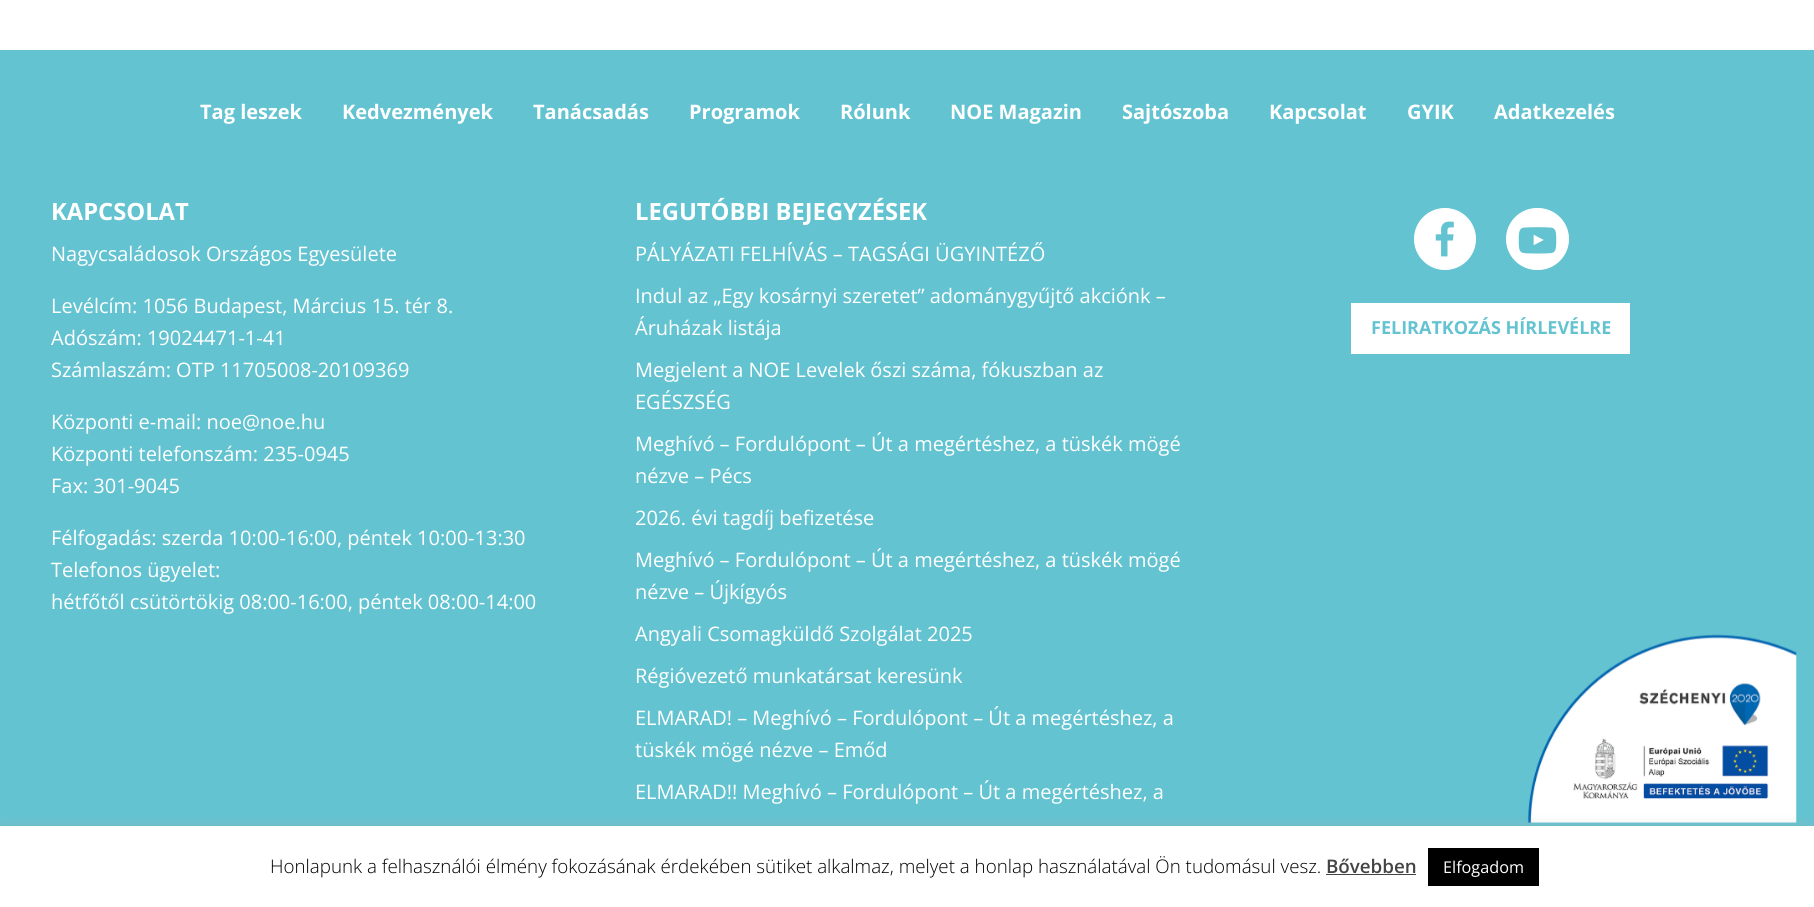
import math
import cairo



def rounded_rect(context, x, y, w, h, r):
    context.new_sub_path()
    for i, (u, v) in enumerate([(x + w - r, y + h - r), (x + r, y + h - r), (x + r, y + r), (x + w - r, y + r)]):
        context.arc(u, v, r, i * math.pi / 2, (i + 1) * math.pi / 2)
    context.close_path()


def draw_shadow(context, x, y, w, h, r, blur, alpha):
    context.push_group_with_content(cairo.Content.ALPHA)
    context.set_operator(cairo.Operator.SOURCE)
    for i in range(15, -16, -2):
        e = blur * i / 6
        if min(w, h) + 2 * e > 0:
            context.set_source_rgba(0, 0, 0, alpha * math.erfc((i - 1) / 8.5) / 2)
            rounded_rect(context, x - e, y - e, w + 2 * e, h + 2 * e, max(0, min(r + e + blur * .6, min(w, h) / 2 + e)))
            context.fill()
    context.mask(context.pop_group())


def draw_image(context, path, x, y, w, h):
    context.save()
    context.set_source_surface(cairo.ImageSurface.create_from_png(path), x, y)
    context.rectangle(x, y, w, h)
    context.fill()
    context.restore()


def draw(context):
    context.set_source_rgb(1, 1, 1)
    context.paint()
    context.set_source_rgb(99 / 255, 195 / 255, 209 / 255)
    context.rectangle(0, 50, 1814, 776)
    context.fill()
    context.set_source_rgb(1, 1, 1)
    context.arc(1445, 239, 30.5, 0, 2 * math.pi)
    context.fill_preserve()
    context.set_line_width(1)
    context.stroke()
    draw_image(context, "images/1.png", 1435, 221, 19, 36)
    rounded_rect(context, 1506.5, 208.5, 62, 61, 30.5)
    context.fill_preserve()
    context.stroke()
    draw_image(context, "images/2.png", 1518, 227, 39, 27)
    context.rectangle(1351, 303, 279, 51)
    context.fill()
    draw_image(context, "images/3.png", 1527, 634, 270, 189)
    context.set_source_rgb(172 / 255, 171 / 255, 171 / 255)
    draw_shadow(context, 0, 825, 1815, 81, 0, 6, 0.3)
    context.set_source_rgb(1, 1, 1)
    context.rectangle(0, 826, 1814, 81)
    context.fill()
    context.set_source_rgb(68 / 255, 68 / 255, 68 / 255)
    context.rectangle(1326, 874, 90, 1)
    context.fill()
    context.set_source_rgb(0, 0, 0)
    context.rectangle(1428, 848, 111, 38)
    context.fill()
    context.select_font_face("Open Sans", cairo.FontSlant.NORMAL, cairo.FontWeight.BOLD)
    context.set_font_size(20)
    context.set_source_rgb(1, 1, 1)
    context.move_to(200, 119)
    context.show_text("Tag leszek")
    context.move_to(342, 119)
    context.show_text("Kedvezmények")
    context.move_to(533, 119)
    context.show_text("Tanácsadás")
    context.move_to(689, 119)
    context.show_text("Programok")
    context.move_to(840, 119)
    context.show_text("Rólunk")
    context.move_to(950, 119)
    context.show_text("NOE Magazin")
    context.move_to(1122, 119)
    context.show_text("Sajtószoba")
    context.move_to(1269, 119)
    context.show_text("Kapcsolat")
    context.move_to(1407, 119)
    context.show_text("GYIK")
    context.move_to(1494, 119)
    context.show_text("Adatkezelés")
    context.set_font_size(23.75)
    context.move_to(51, 220)
    context.show_text("KAPCSOLAT")
    context.select_font_face("Open Sans")
    context.set_font_size(20)
    context.move_to(51, 261)
    context.show_text("Nagycsaládosok Országos Egyesülete")
    context.move_to(51, 313)
    context.show_text("Levélcím: 1056 Budapest, Március 15. tér 8.")
    context.move_to(51, 345)
    context.show_text("Adószám: 19024471-1-41")
    context.move_to(51, 377)
    context.show_text("Számlaszám: OTP 11705008-20109369")
    context.move_to(51, 429)
    context.show_text("Központi e-mail: noe@noe.hu")
    context.move_to(51, 461)
    context.show_text("Központi telefonszám: 235-0945")
    context.move_to(51, 493)
    context.show_text("Fax: 301-9045")
    context.move_to(51, 545)
    context.show_text("Félfogadás: szerda 10:00-16:00, péntek 10:00-13:30")
    context.move_to(51, 577)
    context.show_text("Telefonos ügyelet:")
    context.move_to(51, 609)
    context.show_text("hétfőtől csütörtökig 08:00-16:00, péntek 08:00-14:00")
    context.select_font_face("Open Sans", cairo.FontSlant.NORMAL, cairo.FontWeight.BOLD)
    context.set_font_size(23.75)
    context.move_to(635, 220)
    context.show_text("LEGUTÓBBI BEJEGYZÉSEK")
    context.select_font_face("Open Sans")
    context.set_font_size(20)
    context.move_to(635, 261)
    context.show_text("PÁLYÁZATI FELHÍVÁS – TAGSÁGI ÜGYINTÉZŐ")
    context.move_to(635, 303)
    context.show_text("Indul az „Egy kosárnyi szeretet” adománygyűjtő akciónk –")
    context.move_to(635, 335)
    context.show_text("Áruházak listája")
    context.move_to(635, 377)
    context.show_text("Megjelent a NOE Levelek őszi száma, fókuszban az")
    context.move_to(635, 409)
    context.show_text("EGÉSZSÉG")
    context.move_to(635, 451)
    context.show_text("Meghívó – Fordulópont – Út a megértéshez, a tüskék mögé")
    context.move_to(635, 483)
    context.show_text("nézve – Pécs")
    context.move_to(635, 525)
    context.show_text("2026. évi tagdíj befizetése")
    context.move_to(635, 567)
    context.show_text("Meghívó – Fordulópont – Út a megértéshez, a tüskék mögé")
    context.move_to(635, 599)
    context.show_text("nézve – Újkígyós")
    context.move_to(635, 641)
    context.show_text("Angyali Csomagküldő Szolgálat 2025")
    context.move_to(635, 683)
    context.show_text("Régióvezető munkatársat keresünk")
    context.move_to(635, 725)
    context.show_text("ELMARAD! – Meghívó – Fordulópont – Út a megértéshez, a")
    context.move_to(635, 757)
    context.show_text("tüskék mögé nézve – Emőd")
    context.move_to(635, 799)
    context.show_text("ELMARAD!! Meghívó – Fordulópont – Út a megértéshez, a")
    context.select_font_face("Open Sans", cairo.FontSlant.NORMAL, cairo.FontWeight.BOLD)
    context.set_font_size(18)
    context.set_source_rgb(99 / 255, 195 / 255, 209 / 255)
    context.move_to(1371, 334)
    context.show_text("FELIRATKOZÁS HÍRLEVÉLRE")
    context.select_font_face("Open Sans Light")
    context.set_font_size(18.75)
    context.set_source_rgb(0, 0, 0)
    context.move_to(270, 873)
    context.show_text("Honlapunk a felhasználói élmény fokozásának érdekében sütiket alkalmaz, melyet a honlap használatával Ön tudomásul vesz.")
    context.select_font_face("Open Sans SemiBold")
    context.set_source_rgb(68 / 255, 68 / 255, 68 / 255)
    context.move_to(1326, 873)
    context.show_text("Bővebben")
    context.select_font_face("Open Sans")
    context.set_font_size(16.25)
    context.set_source_rgb(1, 1, 1)
    context.move_to(1443, 873)
    context.show_text("Elfogadom")


surface = cairo.ImageSurface(cairo.Format.RGB24, 1814, 907)
context = cairo.Context(surface)
options = cairo.FontOptions()
options.set_hint_metrics(cairo.HintMetrics.OFF)
options.set_hint_style(cairo.HintStyle.NONE)
context.set_font_options(options)
context.set_miter_limit(4)
draw(context)
surface.write_to_png("out.png")
